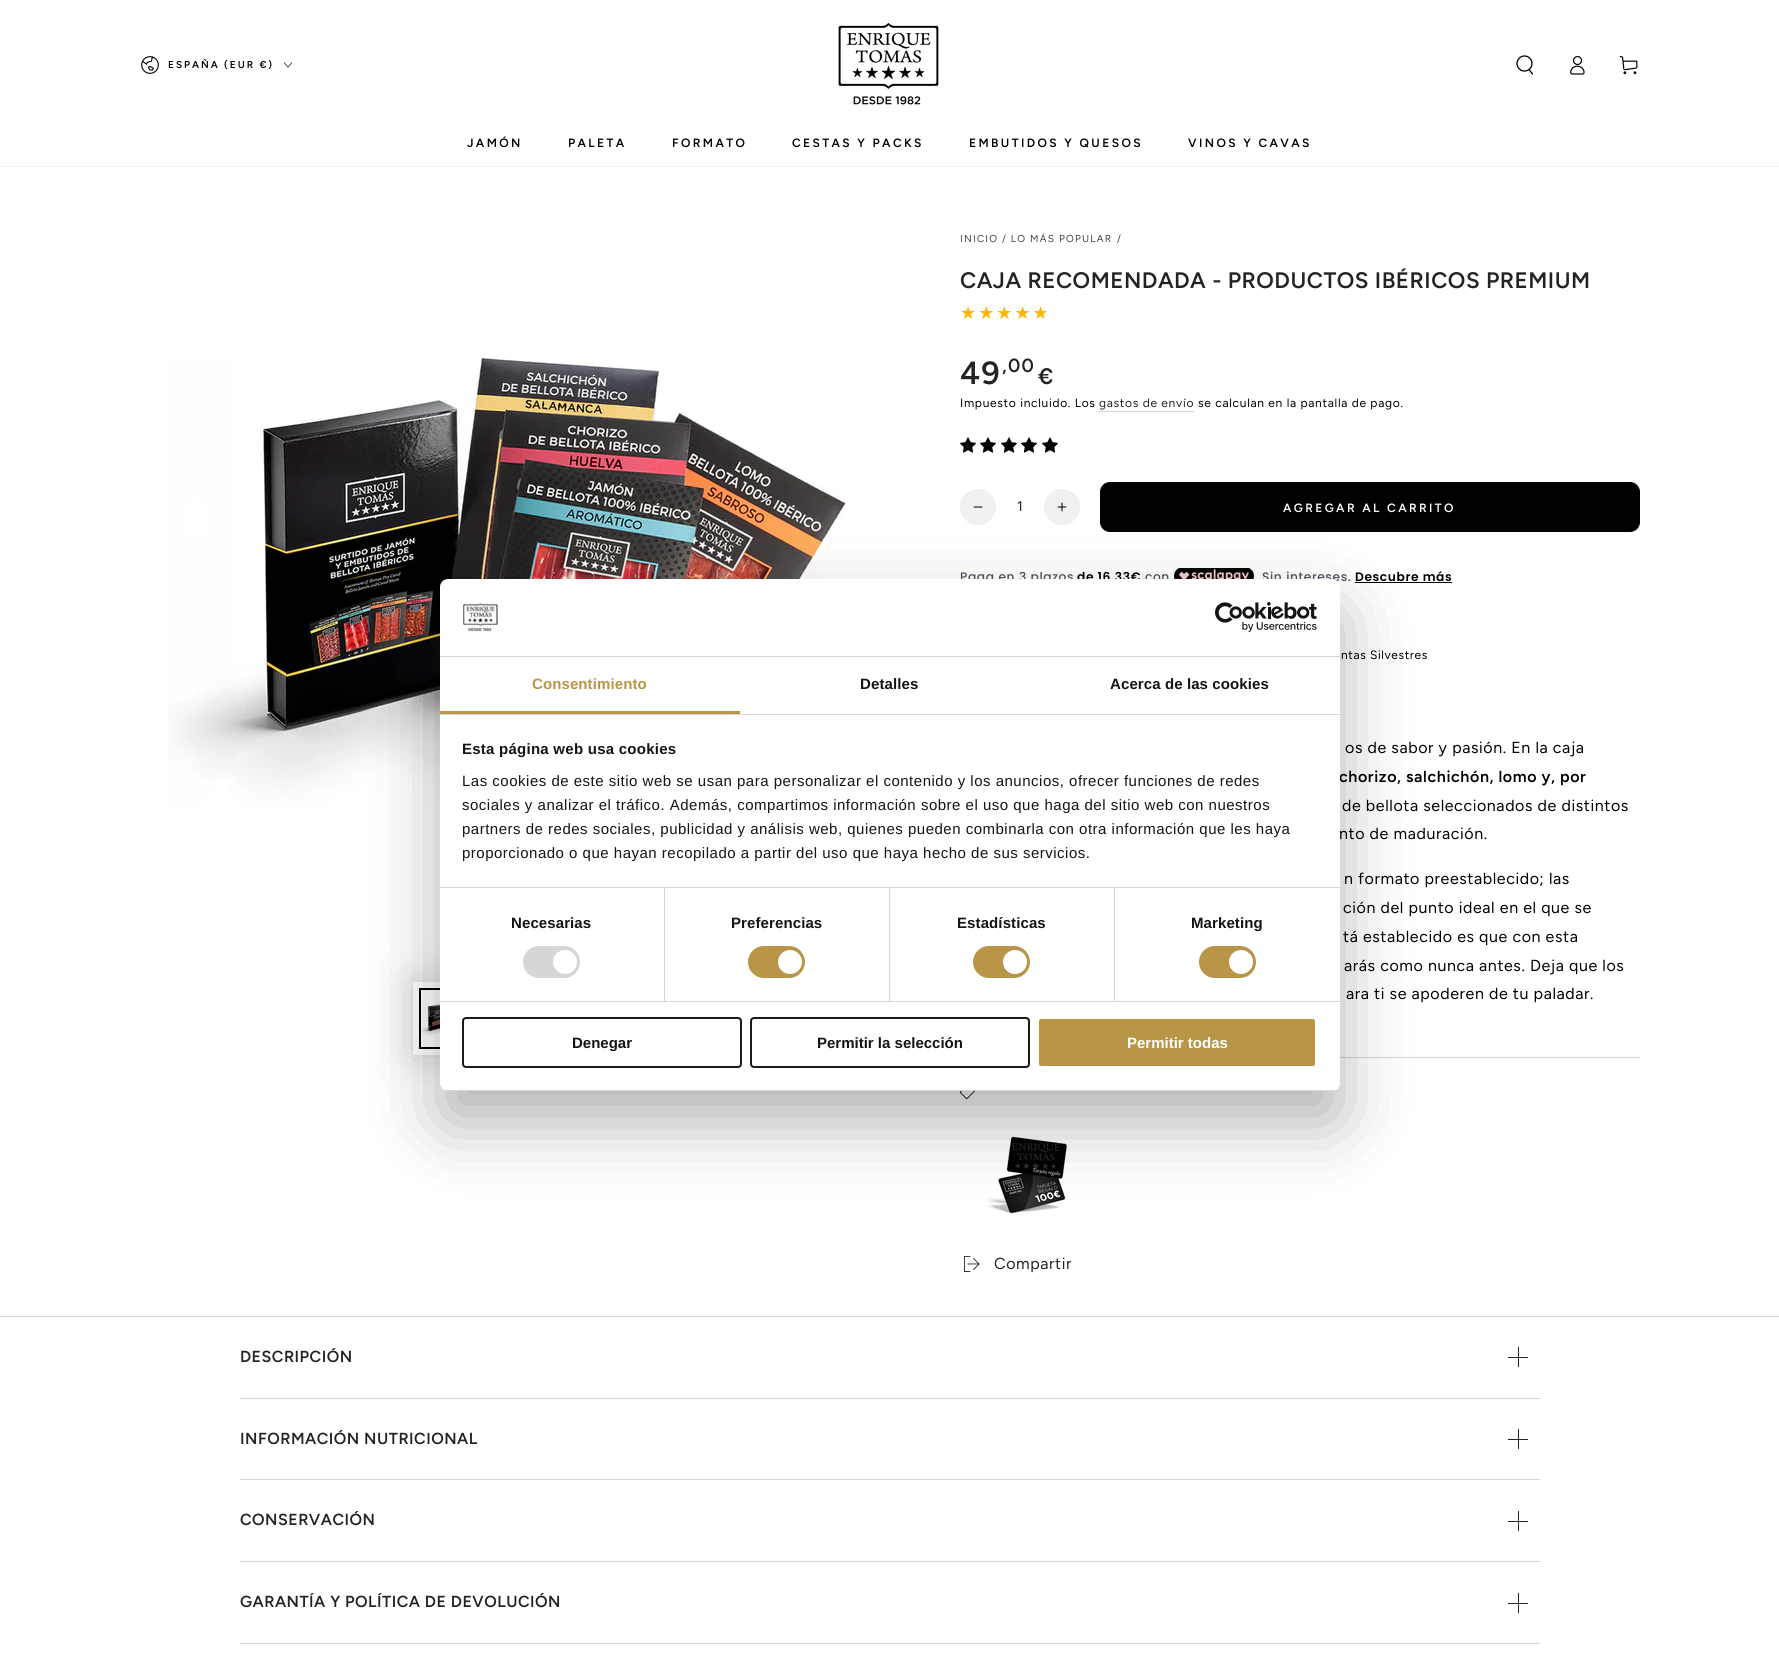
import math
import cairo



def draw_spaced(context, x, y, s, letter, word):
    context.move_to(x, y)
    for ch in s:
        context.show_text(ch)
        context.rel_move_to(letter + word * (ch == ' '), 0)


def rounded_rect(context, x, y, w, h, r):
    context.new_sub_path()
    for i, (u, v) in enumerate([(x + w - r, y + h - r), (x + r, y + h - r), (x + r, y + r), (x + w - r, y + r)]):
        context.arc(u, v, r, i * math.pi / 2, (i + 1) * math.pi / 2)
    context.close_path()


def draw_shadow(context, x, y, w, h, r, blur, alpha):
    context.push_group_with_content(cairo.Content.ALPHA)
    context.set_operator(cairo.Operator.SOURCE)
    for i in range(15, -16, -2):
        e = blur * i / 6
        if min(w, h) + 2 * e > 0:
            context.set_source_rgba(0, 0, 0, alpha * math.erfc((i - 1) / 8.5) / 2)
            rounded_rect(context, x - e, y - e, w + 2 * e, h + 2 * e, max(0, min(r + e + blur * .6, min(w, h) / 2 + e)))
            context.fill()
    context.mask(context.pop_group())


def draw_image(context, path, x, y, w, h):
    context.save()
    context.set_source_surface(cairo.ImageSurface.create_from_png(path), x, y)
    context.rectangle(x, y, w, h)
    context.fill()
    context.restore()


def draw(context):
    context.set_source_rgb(1, 1, 1)
    context.paint()
    context.set_source_rgb(242 / 255, 242 / 255, 244 / 255)
    context.rectangle(0, 166, 1779, 1)
    context.fill()
    draw_image(context, "images/1.png", 141, 56, 18, 18)
    draw_image(context, "images/2.png", 284, 62, 8, 6)
    draw_image(context, "images/3.png", 838, 23, 101, 82)
    context.arc(1524.5, 63.5, 7.5, 0, 2 * math.pi)
    context.set_source_rgb(0, 0, 0)
    context.set_line_width(1.3)
    context.stroke()
    context.new_path()
    context.move_to(1529, 69.5)
    context.line_to(1532.5, 74)
    context.set_line_cap(cairo.LineCap.ROUND)
    context.stroke()
    draw_image(context, "images/4.png", 1570, 55, 15, 20)
    draw_image(context, "images/5.png", 1619, 56, 19, 19)
    draw_image(context, "images/6.png", 167, 358, 681, 452)
    context.save()
    context.set_fill_rule(cairo.FillRule.EVEN_ODD)
    context.new_path()
    context.move_to(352, 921)
    context.line_to(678, 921)
    context.line_to(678, 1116)
    context.line_to(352, 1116)
    context.close_path()
    context.move_to(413, 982)
    context.line_to(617, 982)
    context.line_to(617, 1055)
    context.line_to(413, 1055)
    context.close_path()
    context.clip()
    context.set_source_rgb(0, 0, 0)
    draw_shadow(context, 413, 982, 204, 73, 0, 20, 0.2)
    context.restore()
    draw_image(context, "images/7.png", 421, 1000, 19, 38)
    context.rectangle(420, 989, 58, 59)
    context.set_line_width(2)
    context.set_line_cap(cairo.LineCap.BUTT)
    context.stroke()
    context.set_source_rgb(210 / 255, 213 / 255, 217 / 255)
    context.rectangle(1099, 411, 95, 1)
    context.fill()
    draw_image(context, "images/8.png", 960, 437, 16, 16)
    draw_image(context, "images/8.png", 980, 437, 16, 16)
    draw_image(context, "images/8.png", 1001, 437, 16, 16)
    draw_image(context, "images/8.png", 1021, 437, 16, 16)
    draw_image(context, "images/8.png", 1042, 437, 16, 16)
    context.set_source_rgb(240 / 255, 240 / 255, 240 / 255)
    context.arc(978, 507, 18, 0, 2 * math.pi)
    context.fill()
    draw_image(context, "images/9.png", 973, 506, 10, 2)
    context.arc(1062, 507, 18, 0, 2 * math.pi)
    context.fill()
    draw_image(context, "images/10.png", 1057, 502, 10, 10)
    context.set_source_rgb(0, 0, 0)
    rounded_rect(context, 1100.5, 482.5, 539, 49, 9.5)
    context.fill_preserve()
    context.set_line_width(1)
    context.stroke()
    draw_image(context, "images/11.png", 1174, 568, 80, 11)
    context.rectangle(1355, 582, 97, 1)
    context.fill()
    context.set_source_rgb(210 / 255, 213 / 255, 217 / 255)
    context.rectangle(1340, 1057, 300, 1)
    context.fill()
    draw_image(context, "images/12.png", 960, 1091, 15, 8)
    draw_image(context, "images/13.png", 985, 1136, 83, 80)
    draw_image(context, "images/14.png", 964, 1256, 16, 16)
    context.rectangle(0, 1316, 1779, 1)
    context.fill()
    context.rectangle(240, 1398, 1300, 1)
    context.fill()
    context.set_source_rgb(33 / 255, 35 / 255, 38 / 255)
    context.rectangle(1508, 1357, 20, 1)
    context.fill()
    context.rectangle(1518, 1347, 1, 20)
    context.fill()
    context.set_source_rgb(210 / 255, 213 / 255, 217 / 255)
    context.rectangle(240, 1479, 1300, 1)
    context.fill()
    context.set_source_rgb(33 / 255, 35 / 255, 38 / 255)
    context.rectangle(1508, 1439, 20, 1)
    context.fill()
    context.rectangle(1518, 1429, 1, 20)
    context.fill()
    context.set_source_rgb(210 / 255, 213 / 255, 217 / 255)
    context.rectangle(240, 1561, 1300, 1)
    context.fill()
    context.set_source_rgb(33 / 255, 35 / 255, 38 / 255)
    context.rectangle(1508, 1521, 20, 1)
    context.fill()
    context.rectangle(1518, 1511, 1, 20)
    context.fill()
    context.set_source_rgb(210 / 255, 213 / 255, 217 / 255)
    context.rectangle(240, 1643, 1300, 1)
    context.fill()
    context.set_source_rgb(33 / 255, 35 / 255, 38 / 255)
    context.rectangle(1508, 1603, 20, 1)
    context.fill()
    context.rectangle(1518, 1593, 1, 20)
    context.fill()
    context.set_source_rgb(0, 0, 0)
    draw_shadow(context, 440, 611, 900, 512, 8, 34, 0.3)
    context.select_font_face("Figtree SemiBold")
    context.set_font_size(10)
    context.set_source_rgb(0, 0, 0)
    draw_spaced(context, 168, 68, "ESPAÑA (EUR €)", 2, 0)
    context.set_font_size(12)
    draw_spaced(context, 467, 147, "JAMÓN", 2.4, 0)
    draw_spaced(context, 568, 147, "PALETA", 2.4, 0)
    draw_spaced(context, 672, 147, "FORMATO", 2.4, 0)
    draw_spaced(context, 792, 147, "CESTAS Y PACKS", 2.4, 0)
    draw_spaced(context, 969, 147, "EMBUTIDOS Y QUESOS", 2.4, 0)
    draw_spaced(context, 1188, 147, "VINOS Y CAVAS", 2.4, 0)
    context.select_font_face("Figtree")
    context.set_font_size(10)
    context.set_source_rgb(64 / 255, 64 / 255, 64 / 255)
    draw_spaced(context, 960, 242, "INICIO", 1.25, 0)
    draw_spaced(context, 1002, 242, "/ LO MÁS POPULAR", 1.25, 0)
    draw_spaced(context, 1117, 242, "/", 1.25, 0)
    context.select_font_face("Figtree SemiBold")
    context.set_font_size(22.4)
    context.set_source_rgb(33 / 255, 35 / 255, 38 / 255)
    draw_spaced(context, 960, 288, "CAJA RECOMENDADA - PRODUCTOS IBÉRICOS PREMIUM", 0.5, 0)
    context.select_font_face("DejaVu Sans")
    context.set_font_size(18)
    gradient = cairo.LinearGradient(960, 313, 1050, 313)
    gradient.add_color_stop_rgba(1, 1, 181 / 255, 3 / 255, 1)
    gradient.add_color_stop_rgba(1, 217 / 255, 217 / 255, 217 / 255, 1)
    context.set_source(gradient)
    draw_spaced(context, 960, 319, "★★★★★", 2, 0)
    context.select_font_face("Figtree SemiBold")
    context.set_font_size(32)
    context.set_source_rgb(33 / 255, 35 / 255, 38 / 255)
    draw_spaced(context, 960, 384, "49", 1.25, 0)
    context.set_font_size(19)
    draw_spaced(context, 1002, 372, ",00", 1.25, 0)
    context.set_font_size(22.4)
    draw_spaced(context, 1038, 384, "€", 1.25, 0)
    context.select_font_face("Figtree")
    context.set_font_size(12)
    context.set_source_rgb(0, 0, 0)
    draw_spaced(context, 960, 407, "Impuesto incluido. Los", 0.7, 0)
    context.set_source_rgb(33 / 255, 35 / 255, 38 / 255)
    draw_spaced(context, 1099, 407, "gastos de envío", 0.7, 0)
    context.set_source_rgb(0, 0, 0)
    draw_spaced(context, 1198, 407, "se calculan en la pantalla de pago.", 0.7, 0)
    context.set_font_size(14)
    context.set_source_rgb(33 / 255, 35 / 255, 38 / 255)
    context.move_to(1017, 511)
    context.show_text("1")
    context.select_font_face("Figtree SemiBold")
    context.set_font_size(12)
    context.set_source_rgb(1, 1, 1)
    draw_spaced(context, 1283, 512, "AGREGAR AL CARRITO", 2.4, 0)
    context.select_font_face("Poppins Medium")
    context.set_font_size(12.25)
    context.set_source_rgb(74 / 255, 77 / 255, 90 / 255)
    draw_spaced(context, 960, 581, "Paga en 3 plazos", 0.6, 0)
    context.select_font_face("Poppins SemiBold")
    context.set_source_rgb(0, 0, 0)
    draw_spaced(context, 1077, 581, "de 16,33€", 0.6, 0)
    context.select_font_face("Poppins Medium")
    context.set_source_rgb(74 / 255, 77 / 255, 90 / 255)
    draw_spaced(context, 1145, 581, "con", 0.6, 0)
    draw_spaced(context, 1262, 581, "Sin intereses.", 0.6, 0)
    context.select_font_face("Poppins SemiBold")
    context.set_source_rgb(0, 0, 0)
    draw_spaced(context, 1355, 581, "Descubre más", 0.6, 0)
    context.select_font_face("Figtree")
    context.set_font_size(12)
    draw_spaced(context, 1341, 659, "ntas Silvestres", 0.6, 0)
    context.set_font_size(16)
    draw_spaced(context, 1345, 753, "os de sabor y pasión. En la caja", 0.6, 0)
    context.select_font_face("Figtree SemiBold")
    draw_spaced(context, 1339, 782, "chorizo, salchichón, lomo y, por", 0.6, 0)
    context.select_font_face("Figtree")
    draw_spaced(context, 1342, 811, "de bellota seleccionados de distintos", 0.6, 0)
    draw_spaced(context, 1339, 839, "nto de maduración.", 0.6, 0)
    draw_spaced(context, 1344, 884, "n formato preestablecido; las", 0.6, 0)
    draw_spaced(context, 1343, 913, "ción del punto ideal en el que se", 0.6, 0)
    draw_spaced(context, 1343, 942, "tá establecido es que con esta", 0.6, 0)
    draw_spaced(context, 1344, 971, "arás como nunca antes. Deja que los", 0.6, 0)
    draw_spaced(context, 1346, 999, "ara ti se apoderen de tu paladar.", 0.6, 0)
    context.set_source_rgb(33 / 255, 35 / 255, 38 / 255)
    draw_spaced(context, 994, 1269, "Compartir", 0.6, 0)
    context.select_font_face("Figtree SemiBold")
    draw_spaced(context, 240, 1362, "DESCRIPCIÓN", 0.5, 0)
    draw_spaced(context, 240, 1444, "INFORMACIÓN NUTRICIONAL", 0.5, 0)
    draw_spaced(context, 240, 1525, "CONSERVACIÓN", 0.5, 0)
    draw_spaced(context, 240, 1607, "GARANTÍA Y POLÍTICA DE DEVOLUCIÓN", 0.5, 0)
    context.set_source_rgb(1, 1, 1)
    rounded_rect(context, 440, 579, 900, 512, 8)
    context.fill()
    context.set_source_rgb(214 / 255, 214 / 255, 214 / 255)
    context.rectangle(440, 656, 900, 1)
    context.fill()
    draw_image(context, "images/15.png", 463, 603, 35, 29)
    draw_image(context, "images/16.png", 1215, 602, 102, 30)
    context.rectangle(440, 714, 900, 1)
    context.fill()
    context.set_source_rgb(185 / 255, 149 / 255, 72 / 255)
    context.rectangle(440, 711, 300, 3)
    context.fill()
    context.select_font_face("Liberation Sans", cairo.FontSlant.NORMAL, cairo.FontWeight.BOLD)
    context.set_font_size(15)
    draw_spaced(context, 532, 689, "Consentimiento", 0.1, 0)
    context.set_source_rgb(20 / 255, 20 / 255, 20 / 255)
    draw_spaced(context, 860, 689, "Detalles", 0.1, 0)
    draw_spaced(context, 1110, 689, "Acerca de las cookies", 0.1, 0)
    context.set_source_rgb(214 / 255, 214 / 255, 214 / 255)
    context.rectangle(440, 887, 900, 1)
    context.fill()
    context.set_source_rgb(20 / 255, 20 / 255, 20 / 255)
    draw_spaced(context, 462, 754, "Esta página web usa cookies", 0.25, 0)
    context.select_font_face("Liberation Sans")
    draw_spaced(context, 462, 786, "Las cookies de este sitio web se usan para personalizar el contenido y los anuncios, ofrecer funciones de redes", 0.5, 0)
    draw_spaced(context, 462, 810, "sociales y analizar el tráfico. Además, compartimos información sobre el uso que haga del sitio web con nuestros", 0.5, 0)
    draw_spaced(context, 462, 834, "partners de redes sociales, publicidad y análisis web, quienes pueden combinarla con otra información que les haya", 0.5, 0)
    draw_spaced(context, 462, 858, "proporcionado o que hayan recopilado a partir del uso que haya hecho de sus servicios.", 0.5, 0)
    context.set_source_rgb(214 / 255, 214 / 255, 214 / 255)
    context.rectangle(440, 1001, 900, 1)
    context.fill()
    context.rectangle(664, 888, 1, 113)
    context.fill()
    context.select_font_face("Liberation Sans", cairo.FontSlant.NORMAL, cairo.FontWeight.BOLD)
    context.set_source_rgb(20 / 255, 20 / 255, 20 / 255)
    draw_spaced(context, 511, 928, "Necesarias", 0.1, 0)
    context.set_source_rgb(214 / 255, 214 / 255, 214 / 255)
    rounded_rect(context, 523, 946, 57, 32, 16)
    context.fill()
    context.set_source_rgb(1, 1, 1)
    context.arc(565, 962, 12, 0, 2 * math.pi)
    context.fill()
    context.set_source_rgb(214 / 255, 214 / 255, 214 / 255)
    context.rectangle(889, 888, 1, 113)
    context.fill()
    context.set_source_rgb(20 / 255, 20 / 255, 20 / 255)
    draw_spaced(context, 731, 928, "Preferencias", 0.1, 0)
    context.set_source_rgb(185 / 255, 149 / 255, 72 / 255)
    rounded_rect(context, 748, 946, 57, 32, 16)
    context.fill()
    context.set_source_rgb(1, 1, 1)
    context.arc(790, 962, 12, 0, 2 * math.pi)
    context.fill()
    context.set_source_rgb(214 / 255, 214 / 255, 214 / 255)
    context.rectangle(1114, 888, 1, 113)
    context.fill()
    context.set_source_rgb(20 / 255, 20 / 255, 20 / 255)
    draw_spaced(context, 957, 928, "Estadísticas", 0.1, 0)
    context.set_source_rgb(185 / 255, 149 / 255, 72 / 255)
    rounded_rect(context, 973, 946, 57, 32, 16)
    context.fill()
    context.set_source_rgb(1, 1, 1)
    context.arc(1015, 962, 12, 0, 2 * math.pi)
    context.fill()
    context.set_source_rgb(20 / 255, 20 / 255, 20 / 255)
    draw_spaced(context, 1191, 928, "Marketing", 0.1, 0)
    context.set_source_rgb(185 / 255, 149 / 255, 72 / 255)
    rounded_rect(context, 1199, 946, 57, 32, 16)
    context.fill()
    context.set_source_rgb(1, 1, 1)
    context.arc(1241, 962, 12, 0, 2 * math.pi)
    context.fill()
    context.save()
    rounded_rect(context, 440, 579, 900, 512, 8)
    context.clip()
    context.set_source_rgb(214 / 255, 214 / 255, 214 / 255)
    context.rectangle(440, 1090, 900, 1)
    context.fill()
    context.restore()
    rounded_rect(context, 463, 1018, 278, 49, 3)
    context.set_source_rgb(26 / 255, 26 / 255, 26 / 255)
    context.set_line_width(2)
    context.stroke()
    context.set_source_rgb(20 / 255, 20 / 255, 20 / 255)
    context.move_to(572, 1048)
    context.show_text("Denegar")
    rounded_rect(context, 751, 1018, 278, 49, 3)
    context.set_source_rgb(26 / 255, 26 / 255, 26 / 255)
    context.stroke()
    context.set_source_rgb(20 / 255, 20 / 255, 20 / 255)
    context.move_to(817, 1048)
    context.show_text("Permitir la selección")
    context.set_source_rgb(185 / 255, 149 / 255, 72 / 255)
    rounded_rect(context, 1038, 1018, 278, 49, 3)
    context.fill_preserve()
    context.set_source_rgb(1, 1, 1)
    context.stroke()
    context.move_to(1127, 1048)
    context.show_text("Permitir todas")


surface = cairo.ImageSurface(cairo.Format.RGB24, 1779, 1670)
context = cairo.Context(surface)
options = cairo.FontOptions()
options.set_hint_metrics(cairo.HintMetrics.OFF)
options.set_hint_style(cairo.HintStyle.NONE)
context.set_font_options(options)
context.set_miter_limit(4)
draw(context)
surface.write_to_png("out.png")
